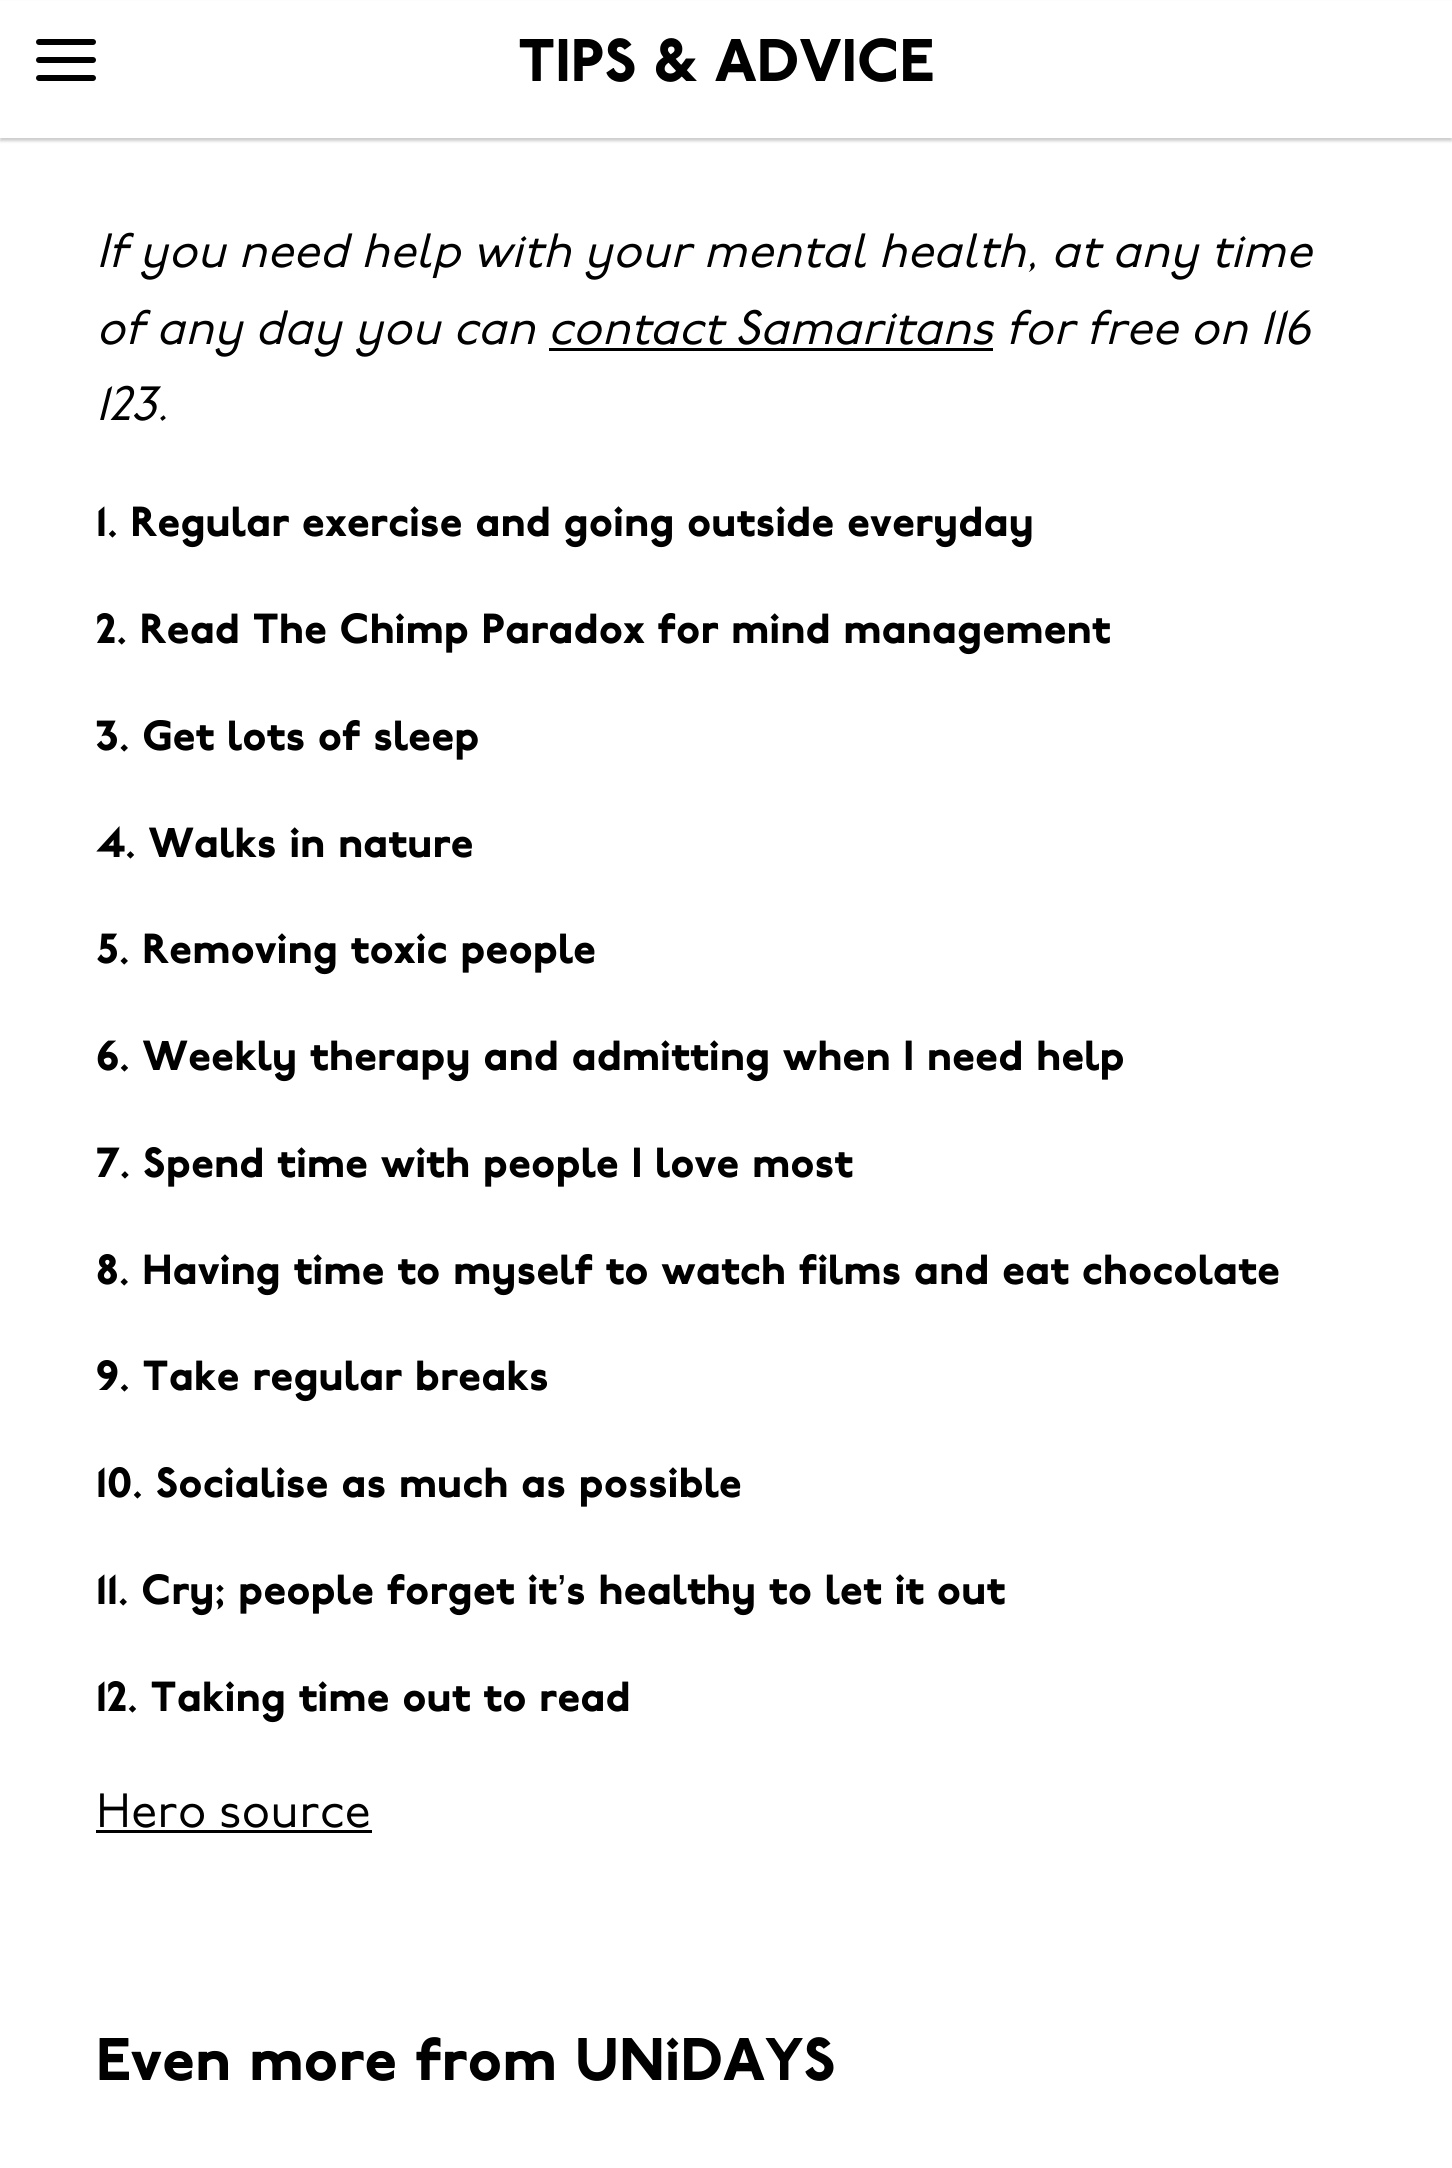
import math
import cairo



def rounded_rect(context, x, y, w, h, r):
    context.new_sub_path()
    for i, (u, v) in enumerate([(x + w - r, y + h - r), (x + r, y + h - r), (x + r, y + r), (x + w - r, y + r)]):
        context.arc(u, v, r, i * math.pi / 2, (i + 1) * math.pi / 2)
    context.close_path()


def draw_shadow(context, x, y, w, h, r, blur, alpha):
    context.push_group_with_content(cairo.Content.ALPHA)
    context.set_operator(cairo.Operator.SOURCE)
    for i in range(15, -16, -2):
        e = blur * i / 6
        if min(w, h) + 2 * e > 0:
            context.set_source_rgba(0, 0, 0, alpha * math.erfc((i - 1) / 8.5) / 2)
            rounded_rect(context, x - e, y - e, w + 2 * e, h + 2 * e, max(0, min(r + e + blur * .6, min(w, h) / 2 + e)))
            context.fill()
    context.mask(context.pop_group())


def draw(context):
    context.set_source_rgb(1, 1, 1)
    context.paint()
    context.set_source_rgb(0, 0, 0)
    draw_shadow(context, 0, 3, 1452, 138, 0, 1.5, 0.2)
    context.set_source_rgb(1, 1, 1)
    context.rectangle(0, 1, 1452, 137)
    context.fill()
    context.set_source_rgb(0, 0, 0)
    rounded_rect(context, 36, 57, 60, 6, 3)
    context.fill()
    rounded_rect(context, 36, 39, 60, 6, 3)
    context.fill()
    rounded_rect(context, 36, 75, 60, 6, 3)
    context.fill()
    context.rectangle(549, 348, 444, 3)
    context.fill()
    context.rectangle(96, 1830, 276, 3)
    context.fill()
    context.select_font_face("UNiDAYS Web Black")
    context.set_font_size(60)
    context.move_to(518, 81)
    context.show_text("TIPS & ADVICE")
    context.select_font_face("UNiDAYS Web", cairo.FontSlant.ITALIC)
    context.set_font_size(48)
    context.move_to(96, 267)
    context.show_text("If you need help with your mental health, at any time")
    context.move_to(96, 344)
    context.show_text("of any day you can contact Samaritans for free on 116")
    context.move_to(96, 420)
    context.show_text("123.")
    context.select_font_face("UNiDAYS Web Black")
    context.set_font_size(42)
    context.move_to(96, 536)
    context.show_text("1. Regular exercise and going outside everyday")
    context.move_to(96, 643)
    context.show_text("2. Read The Chimp Paradox for mind management")
    context.move_to(96, 750)
    context.show_text("3. Get lots of sleep")
    context.move_to(96, 857)
    context.show_text("4. Walks in nature")
    context.move_to(96, 963)
    context.show_text("5. Removing toxic people")
    context.move_to(96, 1070)
    context.show_text("6. Weekly therapy and admitting when I need help")
    context.move_to(96, 1177)
    context.show_text("7. Spend time with people I love most")
    context.move_to(96, 1284)
    context.show_text("8. Having time to myself to watch films and eat chocolate")
    context.move_to(96, 1390)
    context.show_text("9. Take regular breaks")
    context.move_to(96, 1497)
    context.show_text("10. Socialise as much as possible")
    context.move_to(96, 1604)
    context.show_text("11. Cry; people forget it")
    context.select_font_face("Liberation Sans")
    context.move_to(557, 1604)
    context.show_text("’")
    context.select_font_face("UNiDAYS Web Black")
    context.move_to(566, 1604)
    context.show_text("s healthy to let it out")
    context.move_to(96, 1711)
    context.show_text("12. Taking time out to read")
    context.select_font_face("UNiDAYS Web")
    context.set_font_size(48)
    context.move_to(96, 1827)
    context.show_text("Hero source")
    context.select_font_face("UNiDAYS Web Black")
    context.set_font_size(60)
    context.move_to(96, 2080)
    context.show_text("Even more from UNiDAYS")


surface = cairo.ImageSurface(cairo.Format.RGB24, 1452, 2168)
context = cairo.Context(surface)
options = cairo.FontOptions()
options.set_hint_metrics(cairo.HintMetrics.OFF)
options.set_hint_style(cairo.HintStyle.NONE)
context.set_font_options(options)
context.set_miter_limit(4)
draw(context)
surface.write_to_png("out.png")
